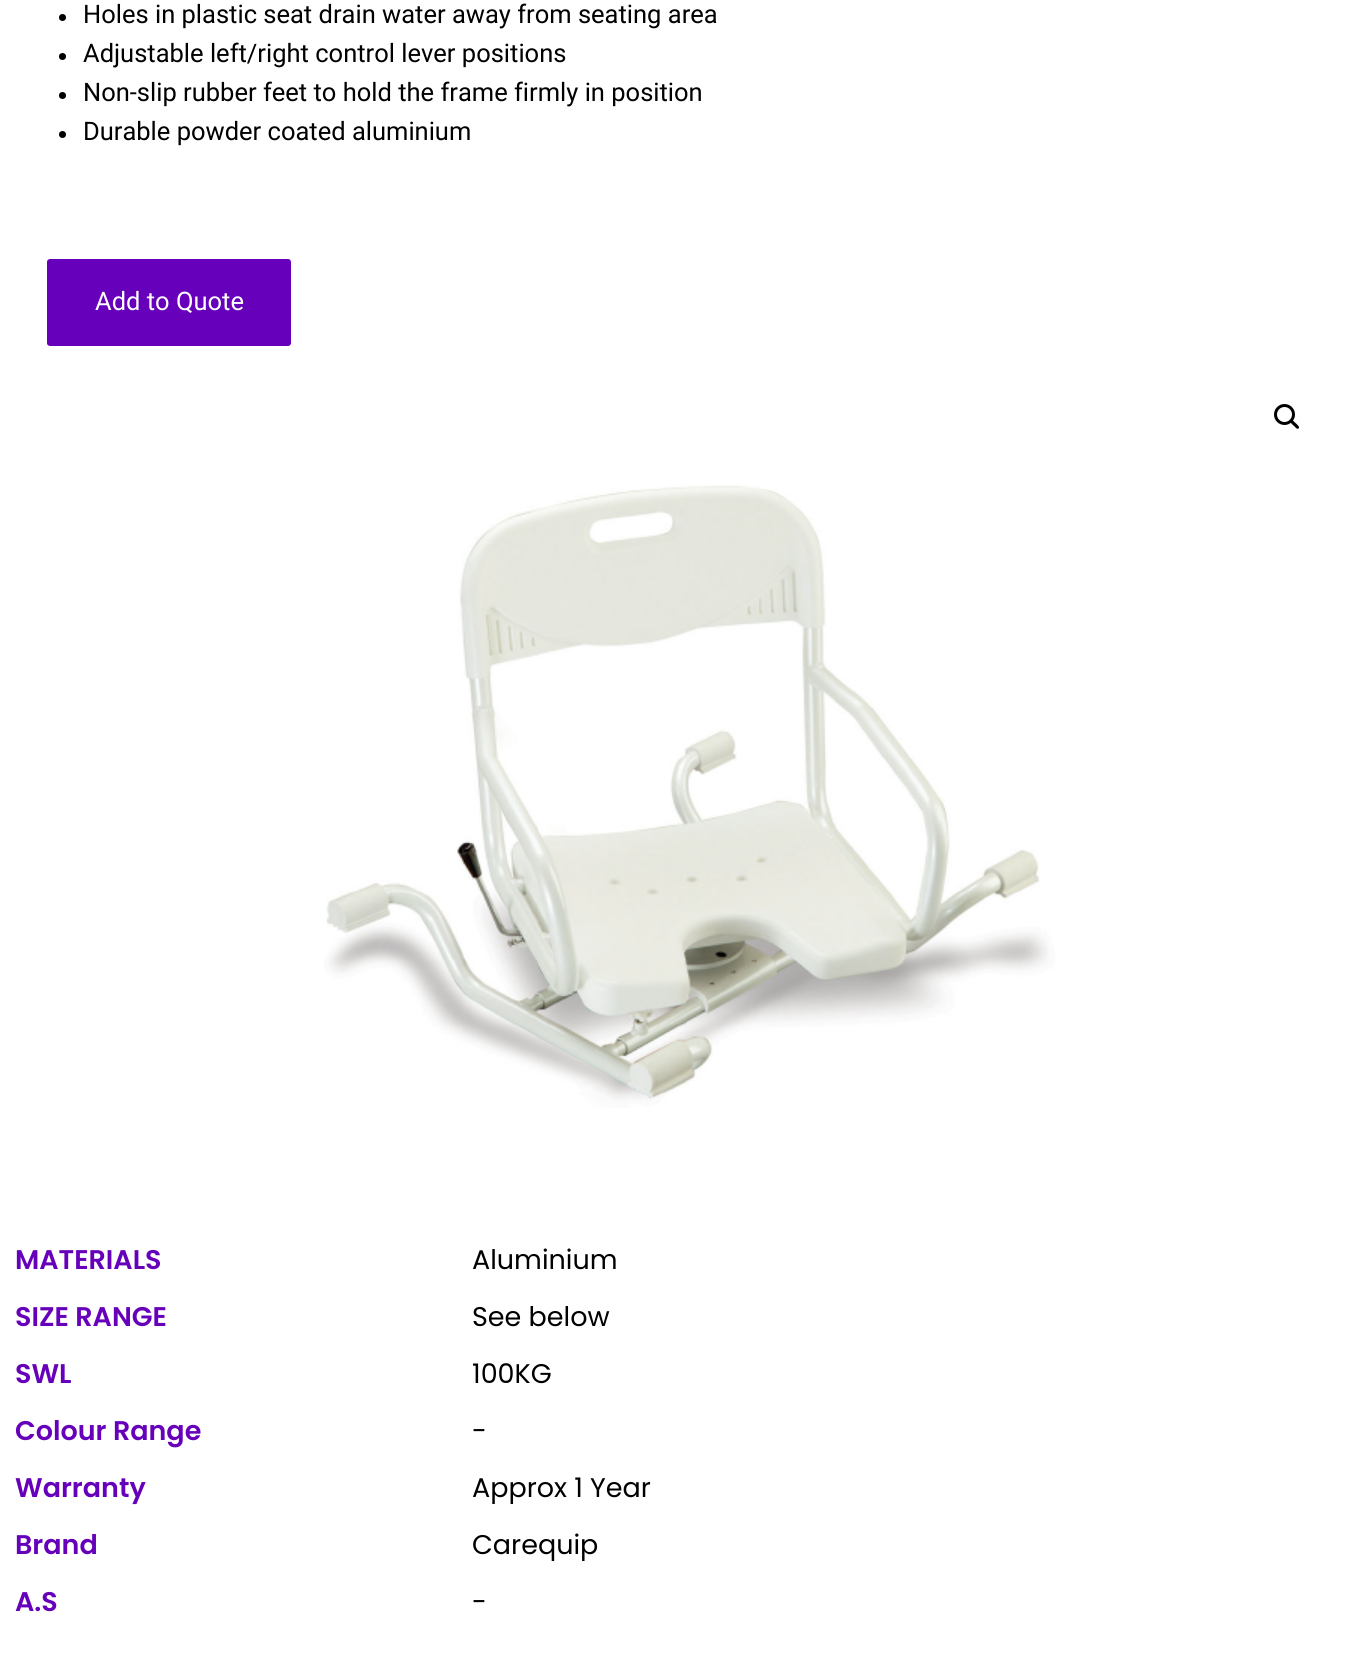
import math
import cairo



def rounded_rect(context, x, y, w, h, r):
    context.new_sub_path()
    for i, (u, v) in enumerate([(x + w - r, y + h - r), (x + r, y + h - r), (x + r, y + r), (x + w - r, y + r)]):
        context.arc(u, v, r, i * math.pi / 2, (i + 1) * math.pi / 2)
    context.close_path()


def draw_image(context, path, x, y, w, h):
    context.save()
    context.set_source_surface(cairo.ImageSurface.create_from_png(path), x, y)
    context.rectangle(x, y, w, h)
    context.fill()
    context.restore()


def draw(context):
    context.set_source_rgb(1, 1, 1)
    context.paint()
    context.set_source_rgb(0, 0, 0)
    context.arc(62.5, 17.5, 3.5, 0, 2 * math.pi)
    context.fill()
    context.arc(62.5, 56.5, 3.5, 0, 2 * math.pi)
    context.fill()
    context.arc(62.5, 95.5, 3.5, 0, 2 * math.pi)
    context.fill()
    context.arc(62.5, 134.5, 3.5, 0, 2 * math.pi)
    context.fill()
    context.set_source_rgb(102 / 255, 0, 186 / 255)
    rounded_rect(context, 46, 258, 246, 89, 4)
    context.fill_preserve()
    context.set_source_rgb(1, 1, 1)
    context.stroke()
    context.arc(1284.5, 414.5, 9, 0, 2 * math.pi)
    context.set_source_rgb(0, 0, 0)
    context.set_line_width(3)
    context.stroke()
    context.new_path()
    context.move_to(1290.5, 420)
    context.curve_to(1292, 418.5, 1294.5, 422.5, 1295.5, 423)
    context.curve_to(1296.5, 424, 1300.5, 427, 1298.5, 428.5)
    context.curve_to(1297, 430, 1294.5, 426, 1293.5, 425.5)
    context.curve_to(1292.5, 424.5, 1288.5, 421.5, 1290.5, 420)
    context.close_path()
    context.fill()
    draw_image(context, "images/1.png", 324, 485, 731, 623)
    context.select_font_face("Roboto")
    context.set_font_size(25.5)
    context.move_to(83, 23)
    context.show_text("Holes in plastic seat drain water away from seating area")
    context.move_to(83, 62)
    context.show_text("Adjustable left/right control lever positions")
    context.move_to(83, 101)
    context.show_text("Non-slip rubber feet to hold the frame firmly in position")
    context.move_to(83, 140)
    context.show_text("Durable powder coated aluminium")
    context.set_source_rgb(1, 1, 1)
    context.move_to(95, 310)
    context.show_text("Add to Quote")
    context.select_font_face("Poppins SemiBold")
    context.set_font_size(27)
    context.set_source_rgb(102 / 255, 0, 186 / 255)
    context.move_to(15, 1269)
    context.show_text("MATERIALS")
    context.select_font_face("Poppins")
    context.set_source_rgb(0, 0, 0)
    context.move_to(472, 1269)
    context.show_text("Aluminium")
    context.select_font_face("Poppins SemiBold")
    context.set_source_rgb(102 / 255, 0, 186 / 255)
    context.move_to(15, 1326)
    context.show_text("SIZE RANGE")
    context.select_font_face("Poppins")
    context.set_source_rgb(0, 0, 0)
    context.move_to(472, 1326)
    context.show_text("See below")
    context.select_font_face("Poppins SemiBold")
    context.set_source_rgb(102 / 255, 0, 186 / 255)
    context.move_to(15, 1383)
    context.show_text("SWL")
    context.select_font_face("Poppins")
    context.set_source_rgb(0, 0, 0)
    context.move_to(472, 1383)
    context.show_text("100KG")
    context.select_font_face("Poppins SemiBold")
    context.set_source_rgb(102 / 255, 0, 186 / 255)
    context.move_to(15, 1440)
    context.show_text("Colour Range")
    context.select_font_face("Poppins")
    context.set_source_rgb(0, 0, 0)
    context.move_to(472, 1440)
    context.show_text("-")
    context.select_font_face("Poppins SemiBold")
    context.set_source_rgb(102 / 255, 0, 186 / 255)
    context.move_to(15, 1497)
    context.show_text("Warranty")
    context.select_font_face("Poppins")
    context.set_source_rgb(0, 0, 0)
    context.move_to(472, 1497)
    context.show_text("Approx 1 Year")
    context.select_font_face("Poppins SemiBold")
    context.set_source_rgb(102 / 255, 0, 186 / 255)
    context.move_to(15, 1554)
    context.show_text("Brand")
    context.select_font_face("Poppins")
    context.set_source_rgb(0, 0, 0)
    context.move_to(472, 1554)
    context.show_text("Carequip")
    context.select_font_face("Poppins SemiBold")
    context.set_source_rgb(102 / 255, 0, 186 / 255)
    context.move_to(15, 1611)
    context.show_text("A.S")
    context.select_font_face("Poppins")
    context.set_source_rgb(0, 0, 0)
    context.move_to(472, 1611)
    context.show_text("-")


surface = cairo.ImageSurface(cairo.Format.RGB24, 1370, 1655)
context = cairo.Context(surface)
options = cairo.FontOptions()
options.set_hint_metrics(cairo.HintMetrics.OFF)
options.set_hint_style(cairo.HintStyle.NONE)
context.set_font_options(options)
context.set_miter_limit(4)
draw(context)
surface.write_to_png("out.png")
